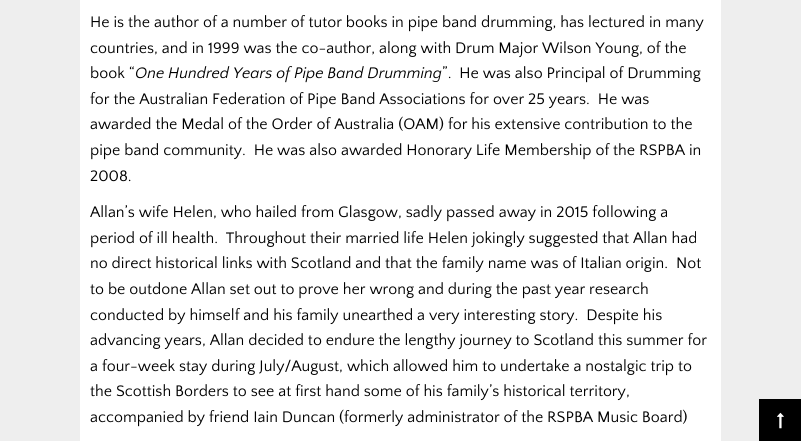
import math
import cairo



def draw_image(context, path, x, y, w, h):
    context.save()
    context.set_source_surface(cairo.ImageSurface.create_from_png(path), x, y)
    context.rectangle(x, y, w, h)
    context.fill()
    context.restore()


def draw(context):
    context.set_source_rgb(238 / 255, 238 / 255, 238 / 255)
    context.paint()
    context.set_source_rgb(1, 1, 1)
    context.rectangle(80, 0, 641, 441)
    context.fill()
    context.set_source_rgb(0, 0, 0)
    context.rectangle(759, 399, 42, 42)
    context.fill()
    draw_image(context, "images/1.png", 777, 412, 7, 17)
    context.select_font_face("Quattrocento Sans")
    context.set_font_size(16)
    context.move_to(90, 27)
    context.show_text("He is the author of a number of tutor books in pipe band drumming, has lectured in many")
    context.move_to(90, 53)
    context.show_text("countries, and in 1999 was the co-author, along with Drum Major Wilson Young, of the")
    context.move_to(90, 78)
    context.show_text("book “")
    context.select_font_face("Quattrocento Sans", cairo.FontSlant.ITALIC)
    context.move_to(135, 78)
    context.show_text("One Hundred Years of Pipe Band Drumming")
    context.select_font_face("Quattrocento Sans")
    context.move_to(442, 78)
    context.show_text("”.  He was also Principal of Drumming")
    context.move_to(90, 104)
    context.show_text("for the Australian Federation of Pipe Band Associations for over 25 years.  He was")
    context.move_to(90, 129)
    context.show_text("awarded the Medal of the Order of Australia (OAM) for his extensive contribution to the")
    context.move_to(90, 155)
    context.show_text("pipe band community.  He was also awarded Honorary Life Membership of the RSPBA in")
    context.move_to(90, 181)
    context.show_text("2008.")
    context.move_to(90, 217)
    context.show_text("Allan’s wife Helen, who hailed from Glasgow, sadly passed away in 2015 following a")
    context.move_to(90, 243)
    context.show_text("period of ill health.  Throughout their married life Helen jokingly suggested that Allan had")
    context.move_to(90, 268)
    context.show_text("no direct historical links with Scotland and that the family name was of Italian origin.  Not")
    context.move_to(90, 294)
    context.show_text("to be outdone Allan set out to prove her wrong and during the past year research")
    context.move_to(90, 320)
    context.show_text("conducted by himself and his family unearthed a very interesting story.  Despite his")
    context.move_to(90, 345)
    context.show_text("advancing years, Allan decided to endure the lengthy journey to Scotland this summer for")
    context.move_to(90, 371)
    context.show_text("a four-week stay during July/August, which allowed him to undertake a nostalgic trip to")
    context.move_to(90, 396)
    context.show_text("the Scottish Borders to see at first hand some of his family’s historical territory,")
    context.move_to(90, 422)
    context.show_text("accompanied by friend Iain Duncan (formerly administrator of the RSPBA Music Board)")


surface = cairo.ImageSurface(cairo.Format.RGB24, 801, 441)
context = cairo.Context(surface)
options = cairo.FontOptions()
options.set_hint_metrics(cairo.HintMetrics.OFF)
options.set_hint_style(cairo.HintStyle.NONE)
context.set_font_options(options)
context.set_miter_limit(4)
draw(context)
surface.write_to_png("out.png")
